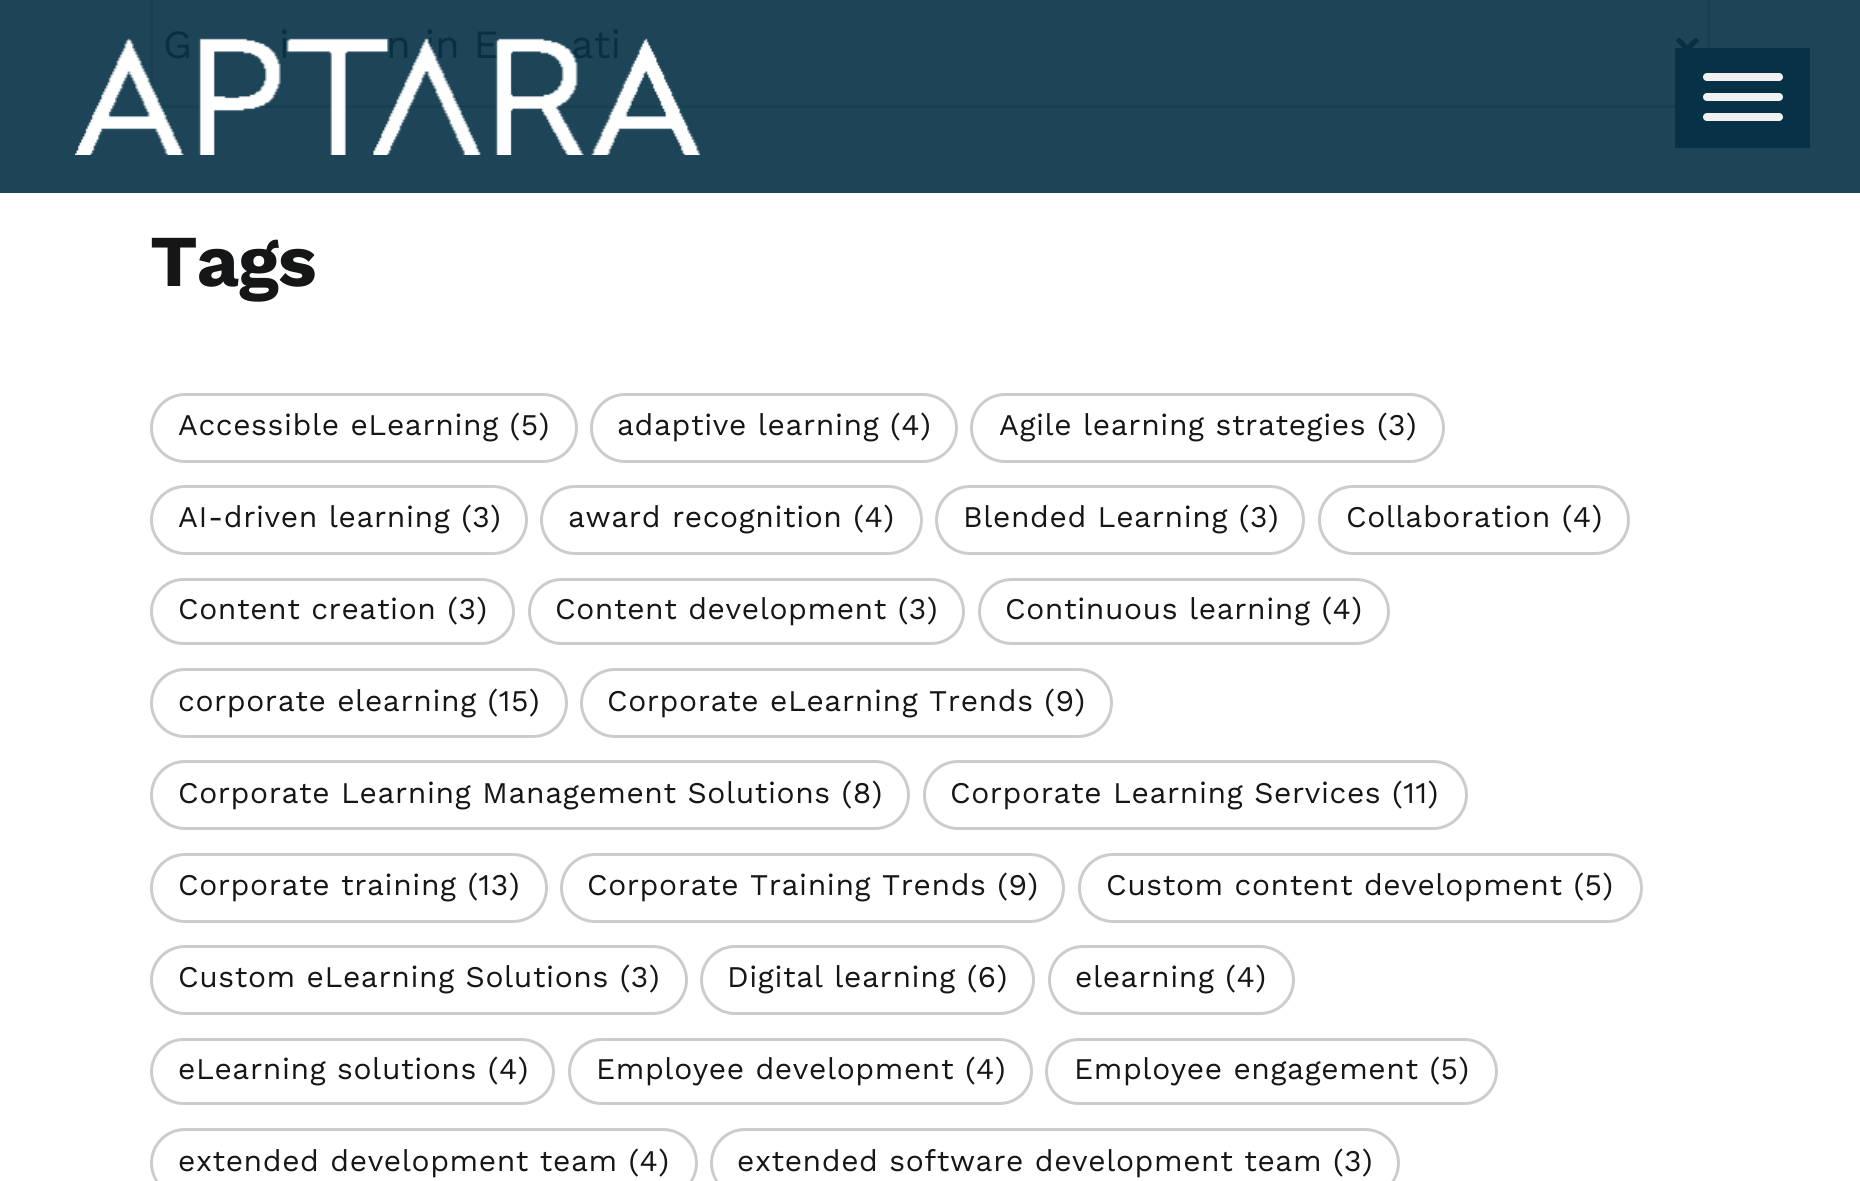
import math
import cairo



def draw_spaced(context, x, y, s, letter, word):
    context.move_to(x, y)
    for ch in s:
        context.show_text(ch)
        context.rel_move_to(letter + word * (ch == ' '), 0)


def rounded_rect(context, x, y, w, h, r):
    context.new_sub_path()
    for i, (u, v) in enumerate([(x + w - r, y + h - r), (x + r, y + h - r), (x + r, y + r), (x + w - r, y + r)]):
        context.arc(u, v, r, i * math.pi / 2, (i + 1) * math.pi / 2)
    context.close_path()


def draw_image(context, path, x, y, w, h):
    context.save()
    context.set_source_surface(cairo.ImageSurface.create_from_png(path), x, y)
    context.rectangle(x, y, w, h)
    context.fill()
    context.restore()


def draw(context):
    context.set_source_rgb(1, 1, 1)
    context.paint()
    context.set_source_rgb(29 / 255, 68 / 255, 87 / 255)
    context.rectangle(0, 0, 1860, 193)
    context.fill()
    rounded_rect(context, 151.5, -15.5, 1557, 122, 13.5)
    context.set_source_rgb(25 / 255, 64 / 255, 82 / 255)
    context.set_line_width(3)
    context.stroke()
    context.new_path()
    context.move_to(1677.5, 39)
    context.line_to(1687.5, 49)
    context.line_to(1697.5, 39)
    context.set_source_rgb(8 / 255, 47 / 255, 66 / 255)
    context.set_line_width(5)
    context.stroke()
    rounded_rect(context, 151.5, 394.5, 425, 67, 33.5)
    context.set_source_rgb(204 / 255, 204 / 255, 204 / 255)
    context.set_line_width(3)
    context.stroke()
    rounded_rect(context, 591.5, 394.5, 365, 67, 33.5)
    context.stroke()
    rounded_rect(context, 971.5, 394.5, 472, 67, 33.5)
    context.stroke()
    rounded_rect(context, 151.5, 486.5, 375, 67, 33.5)
    context.stroke()
    rounded_rect(context, 541.5, 486.5, 380, 67, 33.5)
    context.stroke()
    rounded_rect(context, 936.5, 486.5, 367, 67, 33.5)
    context.stroke()
    rounded_rect(context, 1319.5, 486.5, 309, 67, 33.5)
    context.stroke()
    rounded_rect(context, 151.5, 579.5, 362, 64, 32)
    context.stroke()
    rounded_rect(context, 529.5, 579.5, 434, 64, 32)
    context.stroke()
    rounded_rect(context, 979.5, 579.5, 409, 64, 32)
    context.stroke()
    rounded_rect(context, 151.5, 669.5, 415, 67, 33.5)
    context.stroke()
    rounded_rect(context, 581.5, 669.5, 530, 67, 33.5)
    context.stroke()
    rounded_rect(context, 151.5, 761.5, 757, 67, 33.5)
    context.stroke()
    rounded_rect(context, 924.5, 761.5, 542, 67, 33.5)
    context.stroke()
    rounded_rect(context, 151.5, 854.5, 395, 67, 33.5)
    context.stroke()
    rounded_rect(context, 561.5, 854.5, 502, 67, 33.5)
    context.stroke()
    rounded_rect(context, 1079.5, 854.5, 562, 67, 33.5)
    context.stroke()
    rounded_rect(context, 151.5, 946.5, 535, 67, 33.5)
    context.stroke()
    rounded_rect(context, 701.5, 946.5, 332, 67, 33.5)
    context.stroke()
    rounded_rect(context, 1049.5, 946.5, 244, 67, 33.5)
    context.stroke()
    rounded_rect(context, 151.5, 1039.5, 402, 64, 32)
    context.stroke()
    rounded_rect(context, 569.5, 1039.5, 462, 64, 32)
    context.stroke()
    rounded_rect(context, 1046.5, 1039.5, 450, 64, 32)
    context.stroke()
    rounded_rect(context, 151.5, 1129.5, 545, 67, 33.5)
    context.stroke()
    rounded_rect(context, 711.5, 1129.5, 687, 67, 33.5)
    context.stroke()
    context.set_source_rgb(6 / 255, 49 / 255, 70 / 255)
    context.rectangle(1676.5, 49.5, 132, 97)
    context.fill_preserve()
    context.stroke()
    context.set_source_rgb(241 / 255, 241 / 255, 241 / 255)
    rounded_rect(context, 1703, 73, 80, 8, 4)
    context.fill()
    rounded_rect(context, 1703, 93, 80, 8, 4)
    context.fill()
    rounded_rect(context, 1703, 113, 80, 8, 4)
    context.fill()
    context.select_font_face("Work Sans")
    context.set_font_size(40)
    context.set_source_rgb(8 / 255, 47 / 255, 66 / 255)
    context.move_to(163, 58)
    context.show_text("G")
    context.move_to(279, 58)
    context.show_text("i")
    context.move_to(386, 58)
    context.show_text("n in E")
    context.move_to(571, 58)
    context.show_text("ati")
    context.select_font_face("Work Sans", cairo.FontSlant.NORMAL, cairo.FontWeight.BOLD)
    context.set_font_size(73)
    context.set_source_rgb(20 / 255, 22 / 255, 23 / 255)
    draw_spaced(context, 150, 286, "Tags", -1, 0)
    context.select_font_face("Work Sans")
    context.set_font_size(30)
    draw_spaced(context, 178, 435, "Accessible eLearning (5)", 0.6, 0)
    draw_spaced(context, 617, 435, "adaptive learning (4)", 0.6, 0)
    draw_spaced(context, 999, 435, "Agile learning strategies (3)", 0.6, 0)
    draw_spaced(context, 178, 527, "AI-driven learning (3)", 0.6, 0)
    draw_spaced(context, 568, 527, "award recognition (4)", 0.6, 0)
    draw_spaced(context, 963, 527, "Blended Learning (3)", 0.6, 0)
    draw_spaced(context, 1346, 527, "Collaboration (4)", 0.6, 0)
    draw_spaced(context, 178, 619, "Content creation (3)", 0.6, 0)
    draw_spaced(context, 555, 619, "Content development (3)", 0.6, 0)
    draw_spaced(context, 1005, 619, "Continuous learning (4)", 0.6, 0)
    draw_spaced(context, 178, 711, "corporate elearning (15)", 0.6, 0)
    draw_spaced(context, 607, 711, "Corporate eLearning Trends (9)", 0.6, 0)
    draw_spaced(context, 178, 803, "Corporate Learning Management Solutions (8)", 0.6, 0)
    draw_spaced(context, 950, 803, "Corporate Learning Services (11)", 0.6, 0)
    draw_spaced(context, 178, 895, "Corporate training (13)", 0.6, 0)
    draw_spaced(context, 587, 895, "Corporate Training Trends (9)", 0.6, 0)
    draw_spaced(context, 1106, 895, "Custom content development (5)", 0.6, 0)
    draw_spaced(context, 178, 987, "Custom eLearning Solutions (3)", 0.6, 0)
    draw_spaced(context, 727, 987, "Digital learning (6)", 0.6, 0)
    draw_spaced(context, 1075, 987, "elearning (4)", 0.6, 0)
    draw_spaced(context, 178, 1079, "eLearning solutions (4)", 0.6, 0)
    draw_spaced(context, 596, 1079, "Employee development (4)", 0.6, 0)
    draw_spaced(context, 1074, 1079, "Employee engagement (5)", 0.6, 0)
    draw_spaced(context, 178, 1171, "extended development team (4)", 0.6, 0)
    draw_spaced(context, 737, 1171, "extended software development team (3)", 0.6, 0)
    draw_image(context, "images/1.png", 75, 38, 625, 117)


surface = cairo.ImageSurface(cairo.Format.RGB24, 1860, 1181)
context = cairo.Context(surface)
options = cairo.FontOptions()
options.set_hint_metrics(cairo.HintMetrics.OFF)
options.set_hint_style(cairo.HintStyle.NONE)
context.set_font_options(options)
context.set_miter_limit(4)
draw(context)
surface.write_to_png("out.png")
